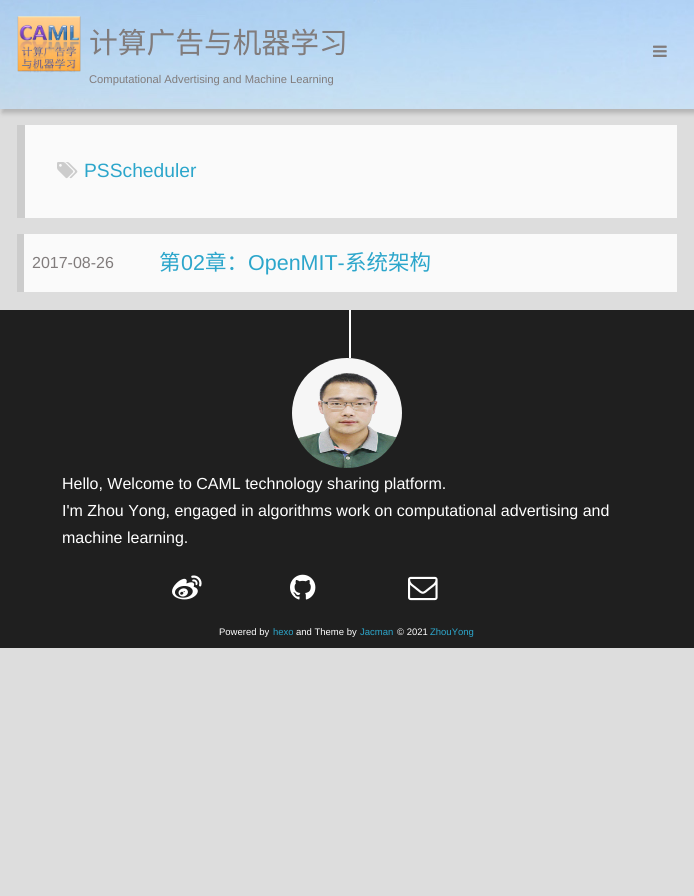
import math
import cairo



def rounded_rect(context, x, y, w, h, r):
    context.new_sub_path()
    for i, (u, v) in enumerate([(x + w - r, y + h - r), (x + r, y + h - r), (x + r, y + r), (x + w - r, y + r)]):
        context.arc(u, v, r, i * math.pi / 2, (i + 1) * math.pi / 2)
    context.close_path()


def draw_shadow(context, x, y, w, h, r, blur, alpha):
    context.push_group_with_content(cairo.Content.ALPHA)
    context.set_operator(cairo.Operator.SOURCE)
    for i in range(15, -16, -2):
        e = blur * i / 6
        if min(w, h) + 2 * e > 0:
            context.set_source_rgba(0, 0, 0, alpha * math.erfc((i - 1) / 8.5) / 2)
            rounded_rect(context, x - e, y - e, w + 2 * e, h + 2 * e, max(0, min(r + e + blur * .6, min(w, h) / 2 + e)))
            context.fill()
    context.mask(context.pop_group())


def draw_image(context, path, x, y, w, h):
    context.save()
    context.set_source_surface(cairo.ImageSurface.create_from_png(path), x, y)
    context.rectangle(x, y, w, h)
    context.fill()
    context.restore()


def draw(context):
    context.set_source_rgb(221 / 255, 221 / 255, 221 / 255)
    context.paint()
    context.set_source_rgb(3 / 255, 3 / 255, 3 / 255)
    draw_shadow(context, 2, 4, 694, 109, 0, 2.5, 0.2)
    draw_image(context, "images/1.png", 0, 0, 694, 109)
    draw_image(context, "images/2.png", 17, 16, 64, 57)
    draw_image(context, "images/3.png", 653, 45, 14, 12)
    context.set_source_rgb(250 / 255, 250 / 255, 250 / 255)
    context.rectangle(25, 125, 652, 93)
    context.fill()
    context.set_source_rgb(204 / 255, 204 / 255, 204 / 255)
    context.rectangle(17, 125, 8, 93)
    context.fill()
    draw_image(context, "images/4.png", 57, 162, 21, 17)
    context.set_source_rgb(250 / 255, 250 / 255, 250 / 255)
    context.rectangle(24, 234, 653, 58)
    context.fill()
    context.set_source_rgb(204 / 255, 204 / 255, 204 / 255)
    context.rectangle(17, 234, 7, 58)
    context.fill()
    context.set_source_rgb(31 / 255, 31 / 255, 31 / 255)
    context.rectangle(0, 310, 694, 338)
    context.fill()
    context.set_source_rgb(1, 1, 1)
    context.rectangle(349, 310, 2, 48)
    context.fill()
    draw_image(context, "images/5.png", 292, 358, 110, 110)
    draw_image(context, "images/6.png", 172, 575, 30, 25)
    draw_image(context, "images/7.png", 290, 574, 26, 26)
    draw_image(context, "images/8.png", 408, 576, 30, 25)
    context.select_font_face("Noto Sans CJK SC")
    context.set_font_size(28.75)
    context.set_source_rgb(129 / 255, 124 / 255, 124 / 255)
    context.move_to(89, 53)
    context.show_text("计算广告与机器学习")
    context.select_font_face("Liberation Sans")
    context.set_font_size(11.2)
    context.move_to(89, 83)
    context.show_text("Computational Advertising and Machine Learning")
    context.set_font_size(19.25)
    context.set_source_rgb(44 / 255, 166 / 255, 203 / 255)
    context.move_to(84, 177)
    context.show_text("PSScheduler")
    context.set_font_size(16)
    context.set_source_rgb(129 / 255, 124 / 255, 124 / 255)
    context.move_to(32, 268)
    context.show_text("2017-08-26")
    context.select_font_face("Noto Sans CJK SC")
    context.set_font_size(21.5)
    context.set_source_rgb(44 / 255, 166 / 255, 203 / 255)
    context.move_to(159, 270)
    context.show_text("第")
    context.select_font_face("Liberation Sans")
    context.move_to(181, 270)
    context.show_text("02")
    context.select_font_face("Noto Sans CJK SC")
    context.move_to(205, 270)
    context.show_text("章：")
    context.select_font_face("Liberation Sans")
    context.move_to(248, 270)
    context.show_text("OpenMIT-")
    context.select_font_face("Noto Sans CJK SC")
    context.move_to(345, 270)
    context.show_text("系统架构")
    context.select_font_face("Liberation Sans")
    context.set_font_size(16)
    context.set_source_rgb(1, 1, 1)
    context.move_to(62, 489)
    context.show_text("Hello, Welcome to CAML technology sharing platform.")
    context.move_to(62, 516)
    context.show_text("I'm Zhou Yong, engaged in algorithms work on computational advertising and")
    context.move_to(62, 543)
    context.show_text("machine learning.")
    context.set_font_size(9.5)
    context.move_to(219, 635)
    context.show_text("Powered by")
    context.set_source_rgb(44 / 255, 166 / 255, 203 / 255)
    context.move_to(273, 635)
    context.show_text("hexo")
    context.set_source_rgb(1, 1, 1)
    context.move_to(296, 635)
    context.show_text("and Theme by")
    context.set_source_rgb(44 / 255, 166 / 255, 203 / 255)
    context.move_to(360, 635)
    context.show_text("Jacman")
    context.set_source_rgb(1, 1, 1)
    context.move_to(397, 635)
    context.show_text("© 2021")
    context.set_source_rgb(44 / 255, 166 / 255, 203 / 255)
    context.move_to(430, 635)
    context.show_text("ZhouYong")


surface = cairo.ImageSurface(cairo.Format.RGB24, 694, 896)
context = cairo.Context(surface)
options = cairo.FontOptions()
options.set_hint_metrics(cairo.HintMetrics.OFF)
options.set_hint_style(cairo.HintStyle.NONE)
context.set_font_options(options)
context.set_miter_limit(4)
draw(context)
surface.write_to_png("out.png")
